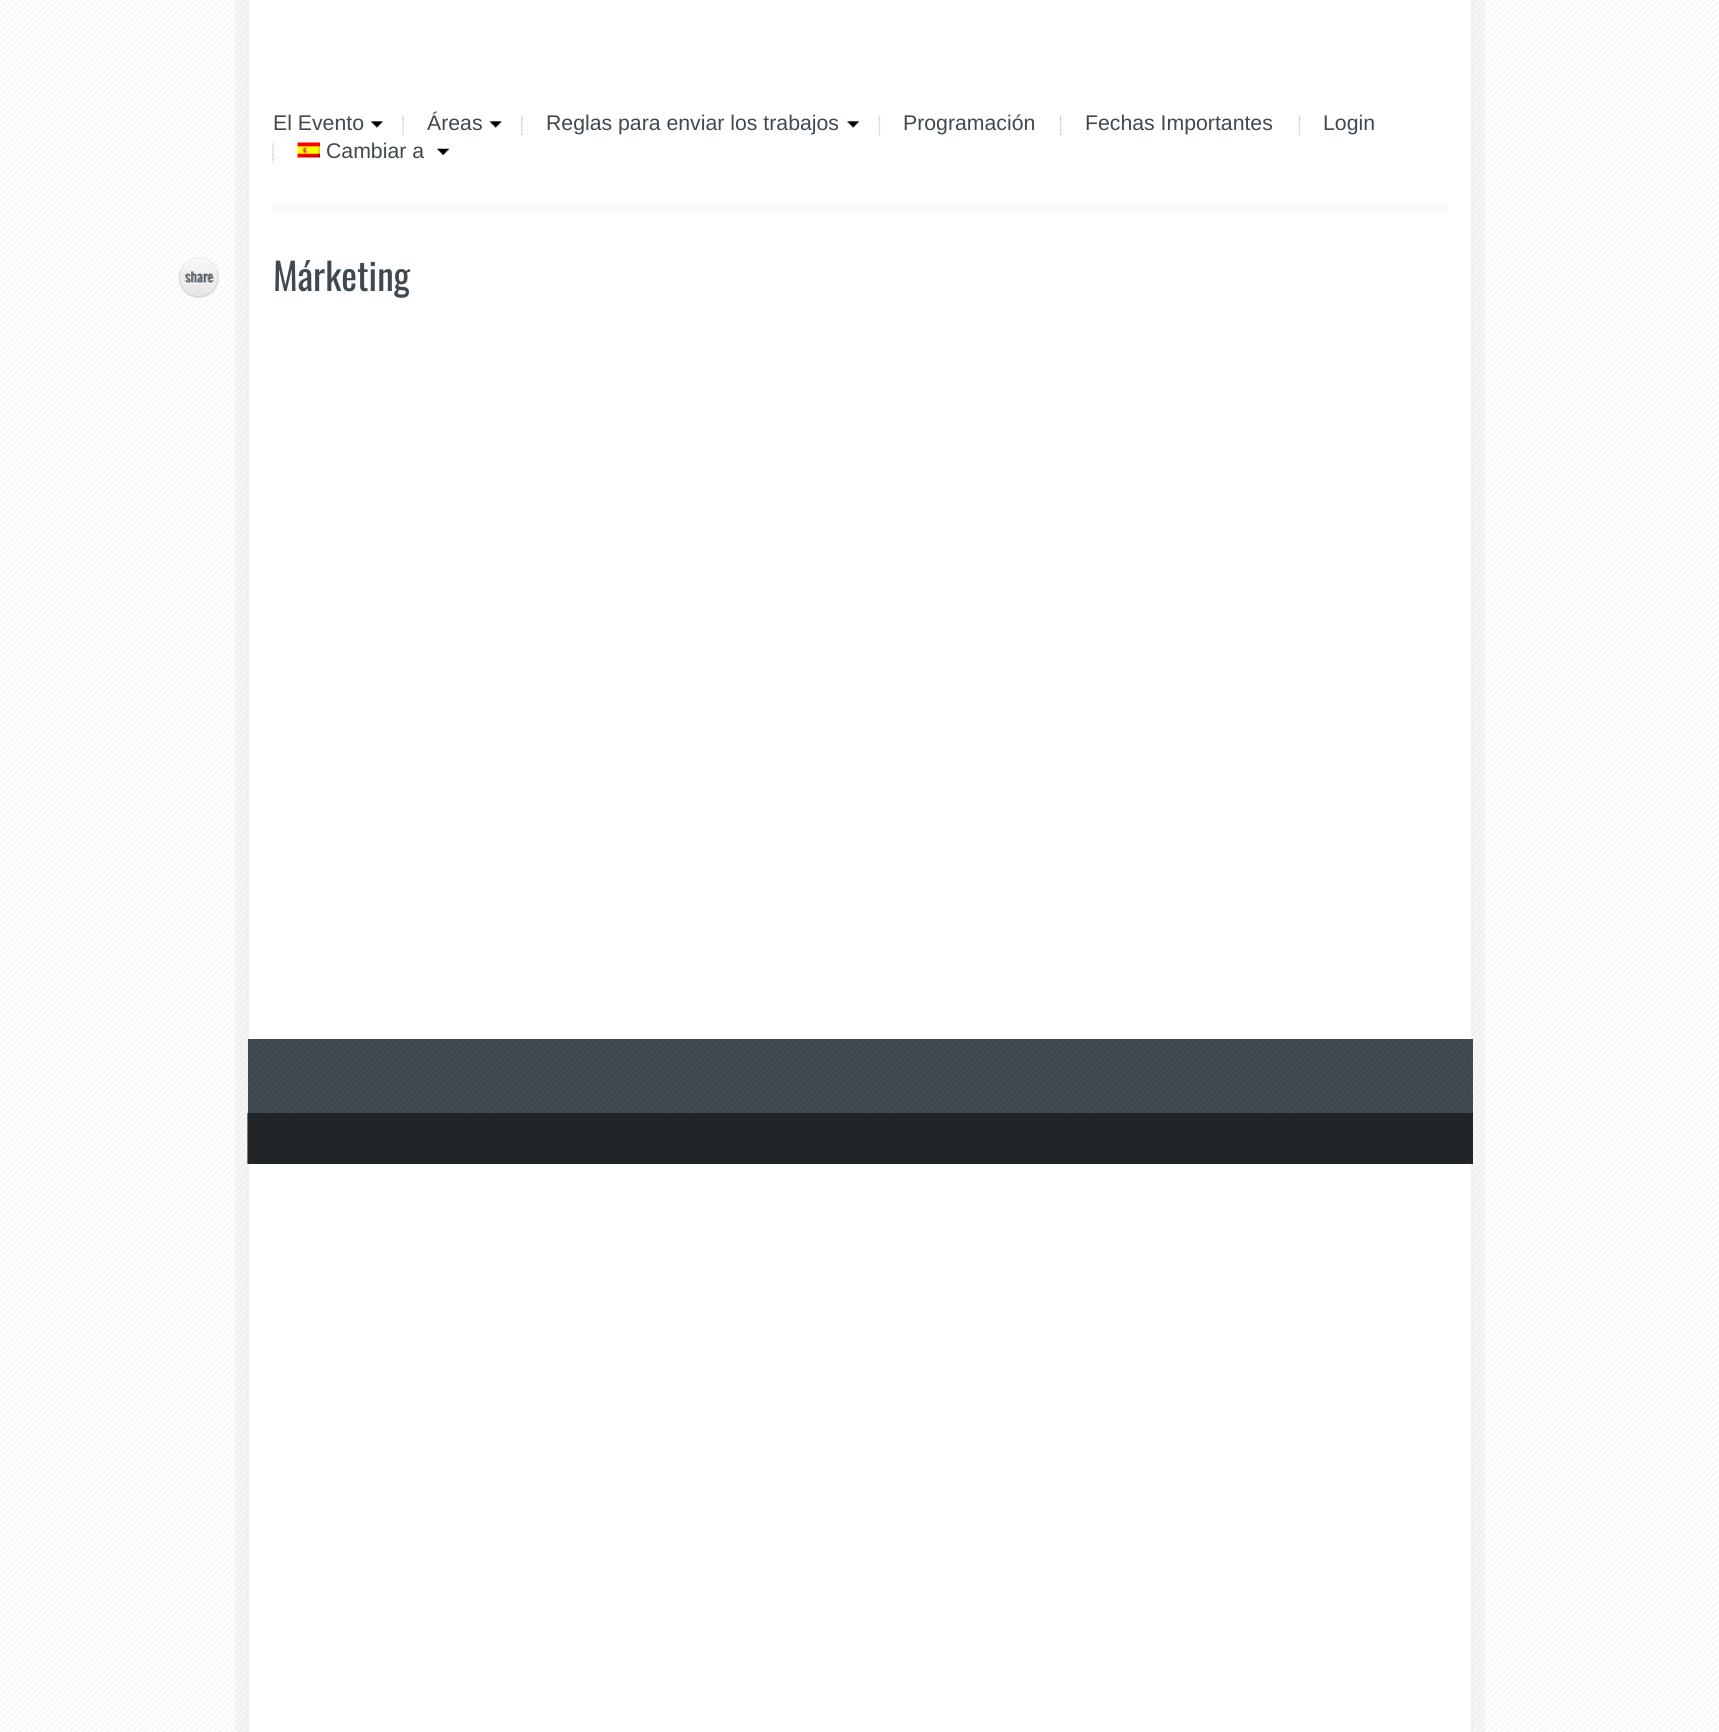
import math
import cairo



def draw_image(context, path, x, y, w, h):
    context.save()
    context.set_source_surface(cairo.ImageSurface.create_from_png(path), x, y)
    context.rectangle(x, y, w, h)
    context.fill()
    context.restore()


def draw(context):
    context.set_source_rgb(1, 1, 1)
    context.paint()
    draw_image(context, "images/1.png", 0, 0, 1719, 1732)
    draw_image(context, "images/2.png", 235, 0, 1250, 1732)
    draw_image(context, "images/3.png", 371, 121, 12, 7)
    draw_image(context, "images/4.png", 402, 115, 2, 20)
    draw_image(context, "images/5.png", 489, 121, 13, 7)
    draw_image(context, "images/6.png", 521, 115, 2, 20)
    draw_image(context, "images/7.png", 847, 121, 12, 7)
    draw_image(context, "images/8.png", 878, 115, 3, 20)
    draw_image(context, "images/9.png", 1060, 115, 2, 20)
    draw_image(context, "images/8.png", 1298, 115, 3, 20)
    draw_image(context, "images/10.png", 272, 142, 2, 21)
    draw_image(context, "images/11.png", 297, 142, 23, 16)
    draw_image(context, "images/12.png", 437, 148, 12, 7)
    context.set_source_rgb(250 / 255, 250 / 255, 250 / 255)
    context.rectangle(273, 202, 1174, 11)
    context.fill()
    draw_image(context, "images/13.png", 178, 257, 41, 41)
    context.set_source_rgb(65 / 255, 75 / 255, 82 / 255)
    context.rectangle(248, 1039, 1225, 125)
    context.fill()
    draw_image(context, "images/14.png", 249, 1039, 1222, 122)
    context.set_source_rgba(0, 0, 0, 0.5)
    context.rectangle(247, 1113, 1226, 51)
    context.fill()
    context.select_font_face("Liberation Sans")
    context.set_font_size(21.25)
    context.set_source_rgb(63 / 255, 73 / 255, 80 / 255)
    context.move_to(273, 130)
    context.show_text("El Evento")
    context.move_to(427, 130)
    context.show_text("Áreas")
    context.move_to(546, 130)
    context.show_text("Reglas para enviar los trabajos")
    context.move_to(903, 130)
    context.show_text("Programación")
    context.move_to(1085, 130)
    context.show_text("Fechas Importantes")
    context.move_to(1323, 130)
    context.show_text("Login")
    context.move_to(326, 158)
    context.show_text("Cambiar a")
    context.select_font_face("Oswald")
    context.set_font_size(37.5)
    context.move_to(273, 291)
    context.show_text("Márketing")


surface = cairo.ImageSurface(cairo.Format.RGB24, 1719, 1732)
context = cairo.Context(surface)
options = cairo.FontOptions()
options.set_hint_metrics(cairo.HintMetrics.OFF)
options.set_hint_style(cairo.HintStyle.NONE)
context.set_font_options(options)
context.set_miter_limit(4)
draw(context)
surface.write_to_png("out.png")
